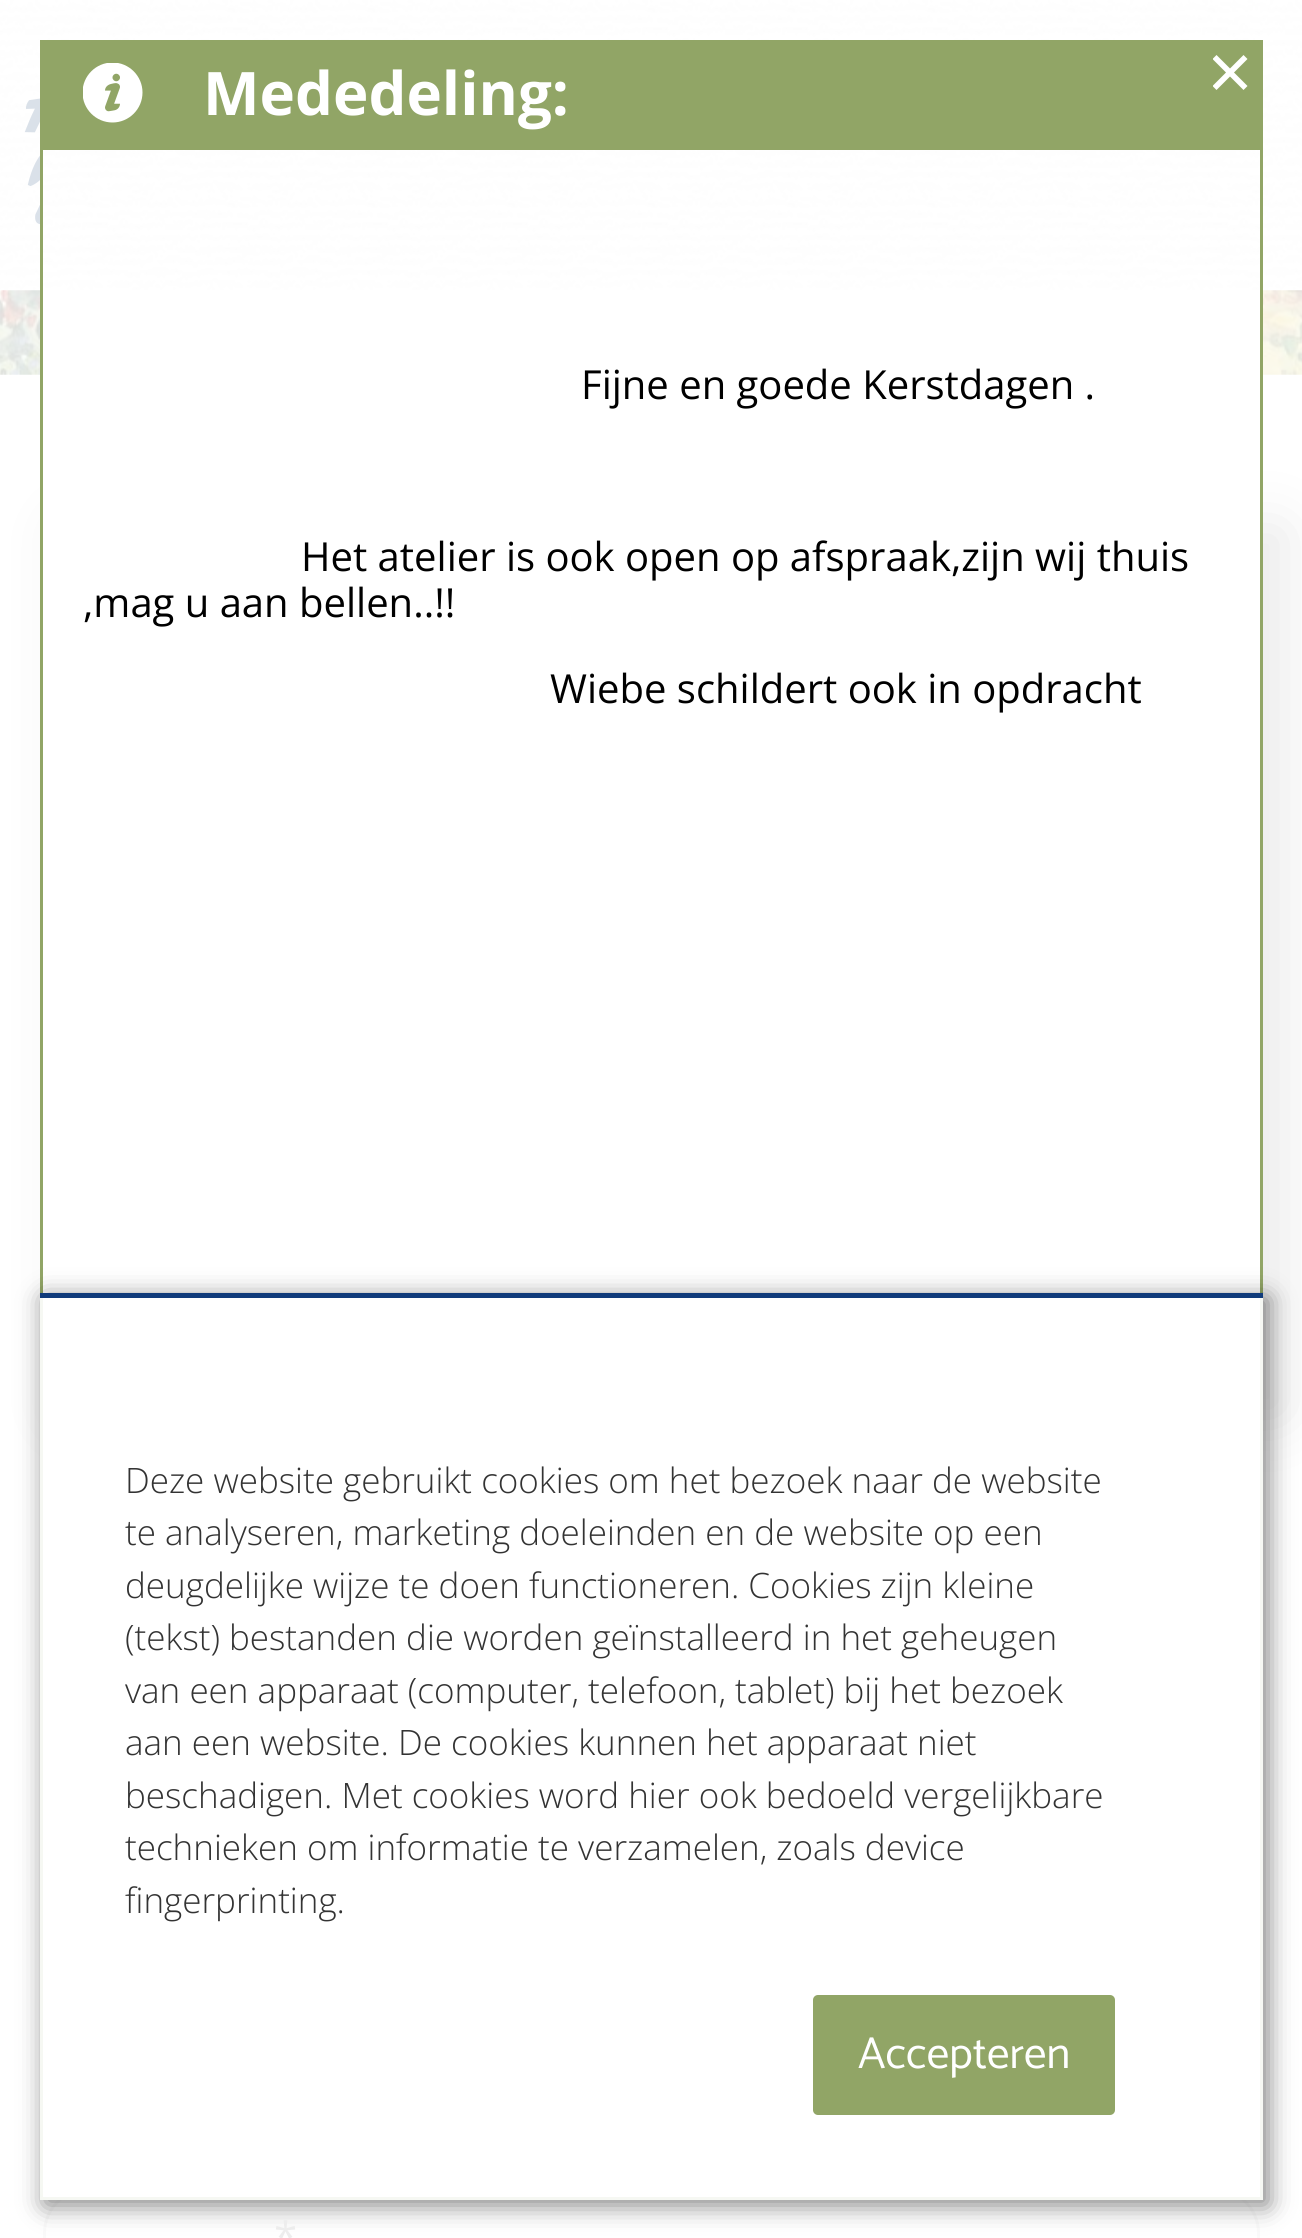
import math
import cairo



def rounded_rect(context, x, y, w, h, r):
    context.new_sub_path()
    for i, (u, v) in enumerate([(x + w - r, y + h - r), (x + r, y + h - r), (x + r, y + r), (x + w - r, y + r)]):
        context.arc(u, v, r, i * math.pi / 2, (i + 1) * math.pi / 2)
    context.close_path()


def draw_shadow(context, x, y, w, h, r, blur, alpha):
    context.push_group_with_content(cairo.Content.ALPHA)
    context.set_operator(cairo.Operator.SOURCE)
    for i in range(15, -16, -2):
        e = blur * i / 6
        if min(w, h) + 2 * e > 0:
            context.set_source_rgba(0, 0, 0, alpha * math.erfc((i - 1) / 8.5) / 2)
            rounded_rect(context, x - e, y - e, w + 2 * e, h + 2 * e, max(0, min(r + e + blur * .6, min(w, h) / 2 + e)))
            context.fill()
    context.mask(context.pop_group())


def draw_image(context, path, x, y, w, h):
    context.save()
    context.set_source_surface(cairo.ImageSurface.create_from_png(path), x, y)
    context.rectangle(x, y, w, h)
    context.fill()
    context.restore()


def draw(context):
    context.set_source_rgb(1, 1, 1)
    context.paint()
    draw_image(context, "images/1.png", 0, 0, 1302, 290)
    draw_image(context, "images/2.png", 24, 98, 16, 127)
    draw_image(context, "images/4.png", 0, 290, 1302, 85)
    context.set_source_rgb(222 / 255, 222 / 255, 222 / 255)
    draw_shadow(context, 68, 528, 1217, 887, 0, 31, 0.66)
    rounded_rect(context, 44.5, 2189.5, 1214, 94, 43.5)
    context.set_source_rgb(250 / 255, 250 / 255, 250 / 255)
    context.set_line_width(3)
    context.stroke()
    context.set_source_rgb(1, 1, 1)
    context.rectangle(43, 290, 1217, 1907)
    context.fill()
    context.rectangle(41.5, 41.5, 1220, 2157)
    context.set_source_rgb(145 / 255, 165 / 255, 102 / 255)
    context.stroke()
    context.rectangle(43, 43, 1217, 107)
    context.fill()
    draw_image(context, "images/3.png", 83, 63, 60, 60)
    context.save()
    context.rectangle(1213, 55, 35, 35)
    context.clip()
    context.set_source_rgb(1, 1, 1)
    context.new_path()
    context.move_to(1247.5, 59)
    context.line_to(1243.5, 55)
    context.line_to(1230, 68.5)
    context.line_to(1216.5, 55)
    context.line_to(1212.5, 59)
    context.line_to(1226, 72.5)
    context.line_to(1212.5, 86)
    context.line_to(1216.5, 90)
    context.line_to(1230, 76.5)
    context.line_to(1243.5, 90)
    context.line_to(1247.5, 86)
    context.line_to(1234, 72.5)
    context.close_path()
    context.fill()
    context.restore()
    context.save()
    context.set_fill_rule(cairo.FillRule.EVEN_ODD)
    context.new_path()
    context.move_to(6, 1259)
    context.line_to(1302, 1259)
    context.line_to(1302, 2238)
    context.line_to(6, 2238)
    context.close_path()
    context.move_to(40, 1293)
    context.line_to(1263, 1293)
    context.line_to(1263, 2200)
    context.line_to(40, 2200)
    context.close_path()
    context.clip()
    context.set_source_rgb(0, 0, 0)
    draw_shadow(context, 45, 1298, 1223, 907, 0, 12.5, 0.5)
    context.restore()
    context.set_source_rgba(1, 1, 1, 0.92)
    context.rectangle(40, 1298, 1223, 902)
    context.fill()
    context.set_source_rgb(16 / 255, 59 / 255, 123 / 255)
    context.rectangle(40, 1293, 1223, 5)
    context.fill()
    context.set_source_rgb(145 / 255, 165 / 255, 102 / 255)
    rounded_rect(context, 813, 1995, 302, 120, 5)
    context.fill()
    context.select_font_face("Open Sans", cairo.FontSlant.NORMAL, cairo.FontWeight.BOLD)
    context.set_font_size(60)
    context.set_source_rgb(1, 1, 1)
    context.move_to(203, 115)
    context.show_text("Mededeling:")
    context.select_font_face("Open Sans")
    context.set_font_size(40)
    context.set_source_rgb(0, 0, 0)
    context.move_to(581, 399)
    context.show_text("Fijne en goede Kerstdagen .")
    context.move_to(301, 571)
    context.show_text("Het atelier is ook open op afspraak,zijn wij thuis")
    context.move_to(83, 617)
    context.show_text(",mag u aan bellen..!!")
    context.move_to(550, 703)
    context.show_text("Wiebe schildert ook in opdracht")
    context.select_font_face("Open Sans Light")
    context.set_font_size(35)
    context.set_source_rgb(51 / 255, 51 / 255, 51 / 255)
    context.move_to(125, 1493)
    context.show_text("Deze website gebruikt cookies om het bezoek naar de website")
    context.move_to(125, 1545)
    context.show_text("te analyseren, marketing doeleinden en de website op een")
    context.move_to(125, 1598)
    context.show_text("deugdelijke wijze te doen functioneren. Cookies zijn kleine")
    context.move_to(125, 1650)
    context.show_text("(tekst) bestanden die worden geïnstalleerd in het geheugen")
    context.move_to(125, 1703)
    context.show_text("van een apparaat (computer, telefoon, tablet) bij het bezoek")
    context.move_to(125, 1755)
    context.show_text("aan een website. De cookies kunnen het apparaat niet")
    context.move_to(125, 1808)
    context.show_text("beschadigen. Met cookies word hier ook bedoeld vergelijkbare")
    context.move_to(125, 1860)
    context.show_text("technieken om informatie te verzamelen, zoals device")
    context.move_to(125, 1913)
    context.show_text("fingerprinting.")
    context.select_font_face("Catamaran")
    context.set_font_size(45)
    context.set_source_rgb(1, 1, 1)
    context.move_to(858, 2068)
    context.show_text("Accepteren")
    context.select_font_face("Open Sans")
    context.set_font_size(42)
    context.set_source_rgb(237 / 255, 237 / 255, 237 / 255)
    context.move_to(274, 2252)
    context.show_text("*")


surface = cairo.ImageSurface(cairo.Format.RGB24, 1302, 2238)
context = cairo.Context(surface)
options = cairo.FontOptions()
options.set_hint_metrics(cairo.HintMetrics.OFF)
options.set_hint_style(cairo.HintStyle.NONE)
context.set_font_options(options)
context.set_miter_limit(4)
draw(context)
surface.write_to_png("out.png")
